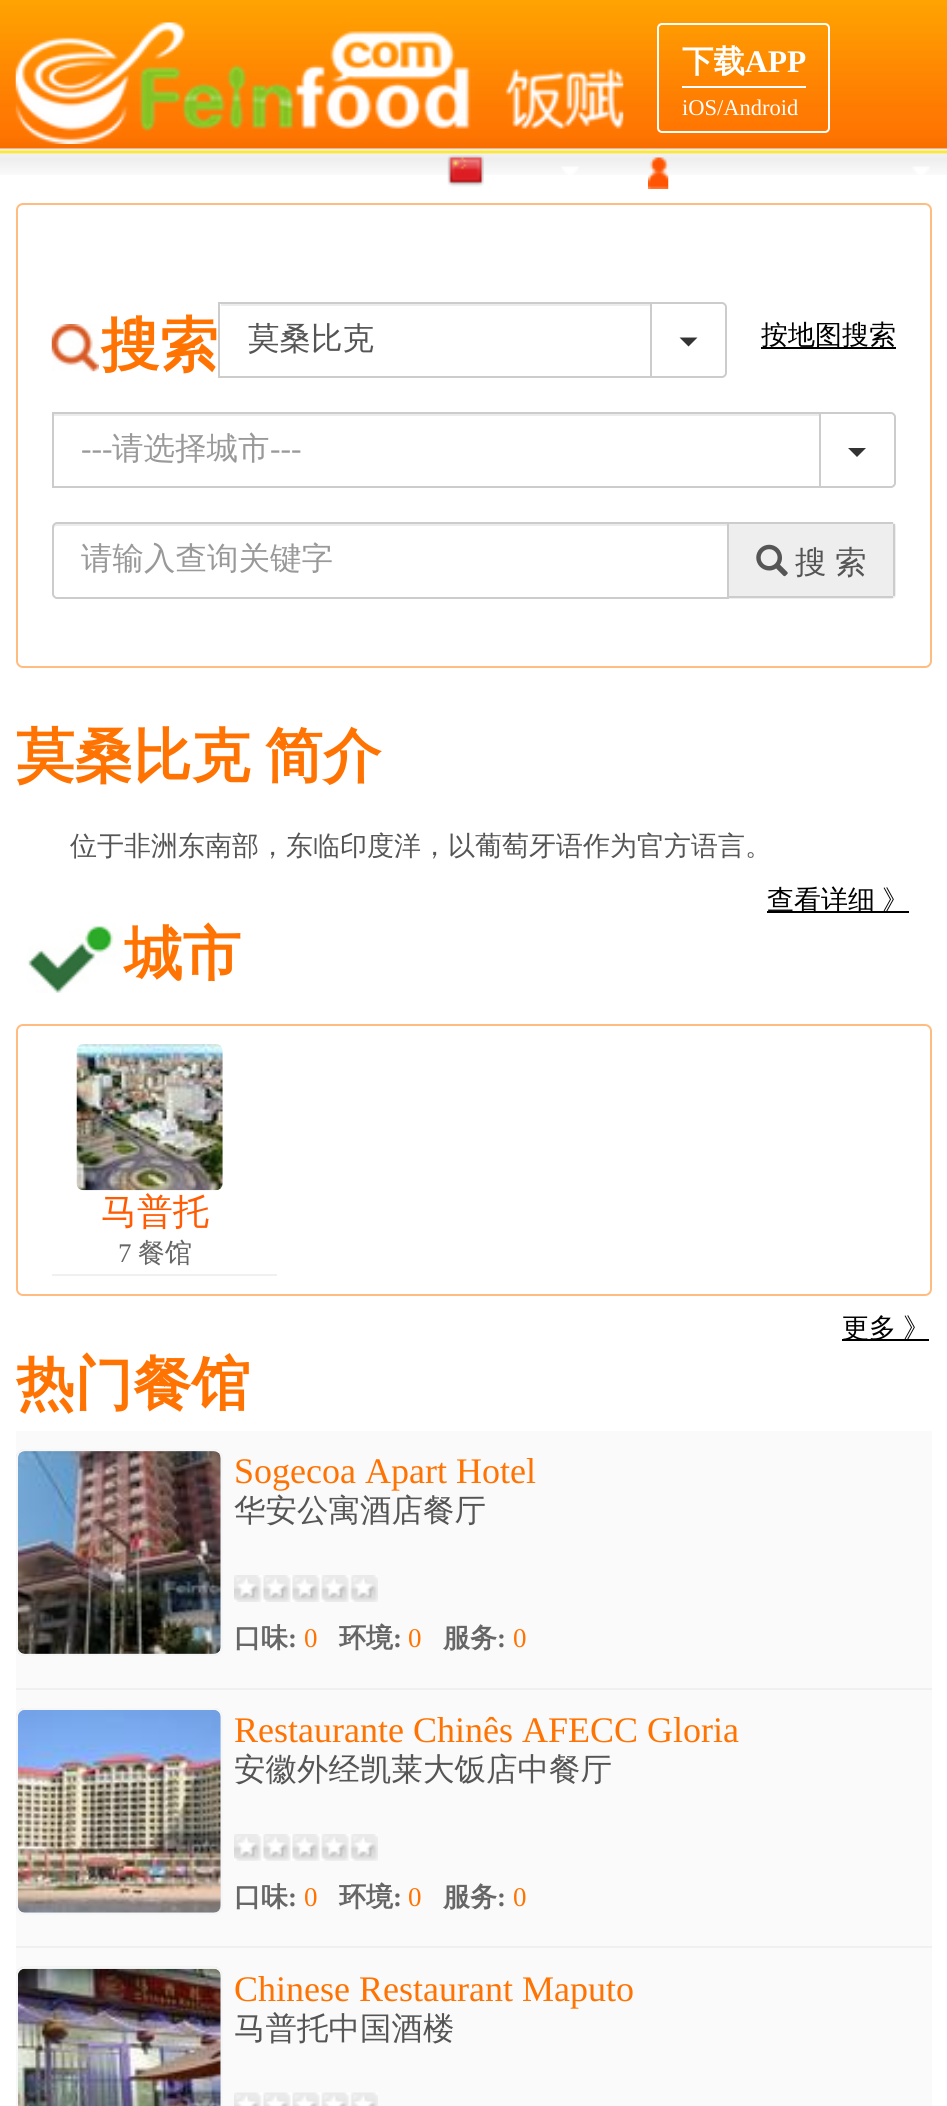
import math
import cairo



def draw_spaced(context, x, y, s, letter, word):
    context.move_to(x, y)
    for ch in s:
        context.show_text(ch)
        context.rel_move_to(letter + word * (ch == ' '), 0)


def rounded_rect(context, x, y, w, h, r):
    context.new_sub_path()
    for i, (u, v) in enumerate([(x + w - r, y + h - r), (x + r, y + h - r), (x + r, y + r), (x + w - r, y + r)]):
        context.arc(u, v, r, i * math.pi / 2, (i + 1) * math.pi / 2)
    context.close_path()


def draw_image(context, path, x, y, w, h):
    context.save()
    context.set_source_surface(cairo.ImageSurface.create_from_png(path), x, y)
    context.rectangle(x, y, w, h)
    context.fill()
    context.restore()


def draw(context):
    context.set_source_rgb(1, 1, 1)
    context.paint()
    draw_image(context, "images/1.png", 0, 0, 947, 175)
    draw_image(context, "images/2.png", 15, 22, 609, 122)
    rounded_rect(context, 658, 24, 171, 108, 4)
    context.set_source_rgb(1, 1, 1)
    context.stroke()
    context.set_source_rgb(254 / 255, 254 / 255, 254 / 255)
    context.rectangle(682, 86, 124, 2)
    context.fill()
    draw_image(context, "images/3.png", 447, 155, 37, 32)
    draw_image(context, "images/4.png", 561, 166, 18, 9)
    draw_image(context, "images/5.png", 648, 157, 21, 32)
    draw_image(context, "images/6.png", 912, 166, 18, 9)
    rounded_rect(context, 17, 204, 914, 463, 6)
    context.set_source_rgb(1, 188 / 255, 128 / 255)
    context.stroke()
    draw_image(context, "images/7.png", 51, 324, 48, 48)
    context.set_source_rgb(0, 0, 0)
    context.rectangle(761, 347, 135, 2)
    context.fill()
    context.set_source_rgb(236 / 255, 236 / 255, 236 / 255)
    context.rectangle(221, 304, 429, 2)
    context.fill()
    context.rectangle(219, 303, 433, 74)
    context.set_source_rgb(204 / 255, 204 / 255, 204 / 255)
    context.stroke()
    context.set_source_rgb(1, 1, 1)
    context.new_path()
    context.move_to(651, 303)
    context.line_to(722, 303)
    context.curve_to(724, 303, 726, 305, 726, 307)
    context.line_to(726, 373)
    context.curve_to(726, 375, 724, 377, 722, 377)
    context.line_to(651, 377)
    context.close_path()
    context.fill_preserve()
    context.set_source_rgb(204 / 255, 204 / 255, 204 / 255)
    context.stroke()
    context.set_source_rgb(51 / 255, 51 / 255, 51 / 255)
    context.new_path()
    context.move_to(679.5, 337.5)
    context.line_to(697.5, 337.5)
    context.line_to(688.5, 346.5)
    context.close_path()
    context.fill()
    context.set_source_rgb(236 / 255, 236 / 255, 236 / 255)
    context.rectangle(54, 414, 765, 2)
    context.fill()
    context.rectangle(53, 413, 767, 74)
    context.set_source_rgb(204 / 255, 204 / 255, 204 / 255)
    context.stroke()
    context.set_source_rgb(1, 1, 1)
    context.new_path()
    context.move_to(820, 413)
    context.line_to(891, 413)
    context.curve_to(893, 413, 895, 415, 895, 417)
    context.line_to(895, 483)
    context.curve_to(895, 485, 893, 487, 891, 487)
    context.line_to(820, 487)
    context.close_path()
    context.fill_preserve()
    context.set_source_rgb(204 / 255, 204 / 255, 204 / 255)
    context.stroke()
    context.set_source_rgb(51 / 255, 51 / 255, 51 / 255)
    context.new_path()
    context.move_to(848, 448)
    context.line_to(866, 448)
    context.line_to(857, 457)
    context.close_path()
    context.fill()
    context.set_source_rgb(236 / 255, 236 / 255, 236 / 255)
    context.new_path()
    context.move_to(56, 526)
    context.line_to(727, 526)
    context.line_to(727, 524)
    context.line_to(56, 524)
    context.curve_to(55, 524, 54, 525, 54, 526)
    context.line_to(54, 529)
    context.curve_to(54, 528, 55, 526, 56, 526)
    context.close_path()
    context.fill()
    context.new_path()
    context.move_to(57, 523)
    context.line_to(728, 523)
    context.line_to(728, 598)
    context.line_to(57, 598)
    context.curve_to(55, 598, 53, 596, 53, 594)
    context.line_to(53, 527)
    context.curve_to(53, 525, 55, 523, 57, 523)
    context.close_path()
    context.set_source_rgb(204 / 255, 204 / 255, 204 / 255)
    context.stroke()
    context.set_source_rgb(238 / 255, 238 / 255, 238 / 255)
    context.new_path()
    context.move_to(729, 522)
    context.line_to(891, 522)
    context.curve_to(894, 522, 896, 524, 896, 527)
    context.line_to(896, 594)
    context.curve_to(896, 597, 894, 599, 891, 599)
    context.line_to(729, 599)
    context.close_path()
    context.fill()
    context.set_source_rgb(204 / 255, 204 / 255, 204 / 255)
    context.rectangle(729, 522, 164, 2)
    context.fill()
    context.rectangle(893, 524, 2, 72)
    context.fill()
    context.rectangle(729, 596, 164, 2)
    context.fill()
    draw_image(context, "images/8.png", 756, 544, 32, 33)
    context.set_source_rgb(0, 0, 0)
    context.rectangle(767, 911, 142, 2)
    context.fill()
    draw_image(context, "images/9.png", 27, 923, 96, 70)
    rounded_rect(context, 17, 1025, 914, 270, 6)
    context.set_source_rgb(1, 188 / 255, 128 / 255)
    context.stroke()
    context.set_source_rgb(240 / 255, 240 / 255, 240 / 255)
    context.rectangle(52, 1274, 225, 2)
    context.fill()
    draw_image(context, "images/10.png", 76, 1044, 147, 147)
    context.set_source_rgb(0, 0, 0)
    context.rectangle(842, 1339, 87, 2)
    context.fill()
    context.set_source_rgb(250 / 255, 250 / 255, 250 / 255)
    context.rectangle(16, 1431, 916, 675)
    context.fill()
    context.set_source_rgb(240 / 255, 240 / 255, 240 / 255)
    context.rectangle(16, 1688, 916, 2)
    context.fill()
    draw_image(context, "images/11.png", 16, 1449, 207, 207)
    rounded_rect(context, 17, 1450, 205, 205, 8)
    context.set_source_rgb(247 / 255, 247 / 255, 247 / 255)
    context.stroke()
    draw_image(context, "images/12.png", 18, 1451, 203, 203)
    draw_image(context, "images/13.png", 234, 1575, 144, 27)
    context.set_source_rgb(240 / 255, 240 / 255, 240 / 255)
    context.rectangle(16, 1946, 916, 2)
    context.fill()
    draw_image(context, "images/14.png", 16, 1708, 207, 207)
    rounded_rect(context, 17, 1709, 205, 205, 8)
    context.set_source_rgb(247 / 255, 247 / 255, 247 / 255)
    context.stroke()
    draw_image(context, "images/15.png", 18, 1710, 203, 203)
    draw_image(context, "images/16.png", 234, 1834, 144, 27)
    draw_image(context, "images/17.png", 16, 1966, 207, 140)
    rounded_rect(context, 17, 1968, 205, 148, 8)
    context.stroke()
    draw_image(context, "images/18.png", 18, 1968, 203, 138)
    draw_image(context, "images/19.png", 234, 2092, 144, 14)
    context.select_font_face("WenQuanYi Zen Hei", cairo.FontSlant.NORMAL, cairo.FontWeight.BOLD)
    context.set_font_size(31.5)
    context.set_source_rgb(1, 1, 1)
    context.move_to(682, 72)
    context.show_text("下载")
    context.select_font_face("Liberation Serif", cairo.FontSlant.NORMAL, cairo.FontWeight.BOLD)
    context.move_to(745, 72)
    context.show_text("APP")
    context.select_font_face("Liberation Serif")
    context.set_font_size(22.5)
    context.move_to(682, 115)
    context.show_text("iOS/Android")
    context.select_font_face("WenQuanYi Zen Hei", cairo.FontSlant.NORMAL, cairo.FontWeight.BOLD)
    context.set_font_size(58.5)
    context.set_source_rgb(1, 115 / 255, 2 / 255)
    context.move_to(101, 365)
    context.show_text("搜索")
    context.select_font_face("WenQuanYi Zen Hei Medium")
    context.set_font_size(27)
    context.set_source_rgb(0, 0, 0)
    context.move_to(761, 344)
    context.show_text("按地图搜索")
    context.set_font_size(31.5)
    context.set_source_rgb(85 / 255, 85 / 255, 85 / 255)
    context.move_to(248, 349)
    context.show_text("莫桑比克")
    context.select_font_face("Liberation Serif")
    context.set_source_rgb(153 / 255, 153 / 255, 153 / 255)
    context.move_to(81, 459)
    context.show_text("---")
    context.select_font_face("WenQuanYi Zen Hei Medium")
    context.move_to(112, 459)
    context.show_text("请选择城市")
    context.select_font_face("Liberation Serif")
    context.move_to(270, 459)
    context.show_text("---")
    context.select_font_face("WenQuanYi Zen Hei Medium")
    context.move_to(81, 569)
    context.show_text("请输入查询关键字")
    context.set_source_rgb(85 / 255, 85 / 255, 85 / 255)
    context.move_to(795, 573)
    context.show_text("搜")
    context.move_to(835, 573)
    context.show_text("索")
    context.select_font_face("WenQuanYi Zen Hei", cairo.FontSlant.NORMAL, cairo.FontWeight.BOLD)
    context.set_font_size(58.5)
    context.set_source_rgb(1, 115 / 255, 2 / 255)
    draw_spaced(context, 16, 776, "莫桑比克 简介", 0, -3)
    context.select_font_face("WenQuanYi Zen Hei Medium")
    context.set_font_size(27)
    context.set_source_rgb(85 / 255, 85 / 255, 85 / 255)
    context.move_to(70, 855)
    context.show_text("位于非洲东南部，东临印度洋，以葡萄牙语作为官方语言。")
    context.set_source_rgb(0, 0, 0)
    context.move_to(767, 909)
    context.show_text("查看详细")
    context.move_to(882, 909)
    context.show_text("》")
    context.select_font_face("WenQuanYi Zen Hei", cairo.FontSlant.NORMAL, cairo.FontWeight.BOLD)
    context.set_font_size(58.5)
    context.set_source_rgb(1, 115 / 255, 2 / 255)
    context.move_to(124, 974)
    context.show_text("城市")
    context.select_font_face("WenQuanYi Zen Hei Medium")
    context.set_font_size(36)
    context.set_source_rgb(254 / 255, 91 / 255, 2 / 255)
    context.move_to(101, 1224)
    context.show_text("马普托")
    context.select_font_face("Liberation Serif")
    context.set_font_size(27)
    context.set_source_rgb(102 / 255, 102 / 255, 102 / 255)
    context.move_to(118, 1262)
    context.show_text("7")
    context.select_font_face("WenQuanYi Zen Hei Medium")
    context.move_to(138, 1262)
    context.show_text("餐馆")
    context.set_source_rgb(0, 0, 0)
    draw_spaced(context, 842, 1337, "更多 》", 0, -1)
    context.select_font_face("WenQuanYi Zen Hei", cairo.FontSlant.NORMAL, cairo.FontWeight.BOLD)
    context.set_font_size(58.5)
    context.set_source_rgb(1, 115 / 255, 2 / 255)
    context.move_to(16, 1404)
    context.show_text("热门餐馆")
    context.select_font_face("Liberation Serif")
    context.set_font_size(36)
    context.move_to(234, 1483)
    context.show_text("Sogecoa Apart Hotel")
    context.select_font_face("WenQuanYi Zen Hei Medium")
    context.set_font_size(31.5)
    context.set_source_rgb(85 / 255, 85 / 255, 85 / 255)
    context.move_to(234, 1521)
    context.show_text("华安公寓酒店餐厅")
    context.select_font_face("WenQuanYi Zen Hei", cairo.FontSlant.NORMAL, cairo.FontWeight.BOLD)
    context.set_font_size(27)
    context.set_source_rgb(102 / 255, 102 / 255, 102 / 255)
    context.move_to(234, 1647)
    context.show_text("口味")
    context.select_font_face("Liberation Serif", cairo.FontSlant.NORMAL, cairo.FontWeight.BOLD)
    context.move_to(288, 1647)
    context.show_text(":")
    context.select_font_face("Liberation Serif")
    context.set_source_rgb(1, 115 / 255, 2 / 255)
    context.move_to(304, 1647)
    context.show_text("0")
    context.select_font_face("WenQuanYi Zen Hei", cairo.FontSlant.NORMAL, cairo.FontWeight.BOLD)
    context.set_source_rgb(102 / 255, 102 / 255, 102 / 255)
    context.move_to(339, 1647)
    context.show_text("环境")
    context.select_font_face("Liberation Serif", cairo.FontSlant.NORMAL, cairo.FontWeight.BOLD)
    context.move_to(393, 1647)
    context.show_text(":")
    context.select_font_face("Liberation Serif")
    context.set_source_rgb(1, 115 / 255, 2 / 255)
    context.move_to(408, 1647)
    context.show_text("0")
    context.select_font_face("WenQuanYi Zen Hei", cairo.FontSlant.NORMAL, cairo.FontWeight.BOLD)
    context.set_source_rgb(102 / 255, 102 / 255, 102 / 255)
    context.move_to(443, 1647)
    context.show_text("服务")
    context.select_font_face("Liberation Serif", cairo.FontSlant.NORMAL, cairo.FontWeight.BOLD)
    context.move_to(497, 1647)
    context.show_text(":")
    context.select_font_face("Liberation Serif")
    context.set_source_rgb(1, 115 / 255, 2 / 255)
    context.move_to(513, 1647)
    context.show_text("0")
    context.set_font_size(36)
    context.move_to(234, 1742)
    context.show_text("Restaurante Chinês AFECC Gloria")
    context.select_font_face("WenQuanYi Zen Hei Medium")
    context.set_font_size(31.5)
    context.set_source_rgb(85 / 255, 85 / 255, 85 / 255)
    context.move_to(234, 1780)
    context.show_text("安徽外经凯莱大饭店中餐厅")
    context.select_font_face("WenQuanYi Zen Hei", cairo.FontSlant.NORMAL, cairo.FontWeight.BOLD)
    context.set_font_size(27)
    context.set_source_rgb(102 / 255, 102 / 255, 102 / 255)
    context.move_to(234, 1906)
    context.show_text("口味")
    context.select_font_face("Liberation Serif", cairo.FontSlant.NORMAL, cairo.FontWeight.BOLD)
    context.move_to(288, 1906)
    context.show_text(":")
    context.select_font_face("Liberation Serif")
    context.set_source_rgb(1, 115 / 255, 2 / 255)
    context.move_to(304, 1906)
    context.show_text("0")
    context.select_font_face("WenQuanYi Zen Hei", cairo.FontSlant.NORMAL, cairo.FontWeight.BOLD)
    context.set_source_rgb(102 / 255, 102 / 255, 102 / 255)
    context.move_to(339, 1906)
    context.show_text("环境")
    context.select_font_face("Liberation Serif", cairo.FontSlant.NORMAL, cairo.FontWeight.BOLD)
    context.move_to(393, 1906)
    context.show_text(":")
    context.select_font_face("Liberation Serif")
    context.set_source_rgb(1, 115 / 255, 2 / 255)
    context.move_to(408, 1906)
    context.show_text("0")
    context.select_font_face("WenQuanYi Zen Hei", cairo.FontSlant.NORMAL, cairo.FontWeight.BOLD)
    context.set_source_rgb(102 / 255, 102 / 255, 102 / 255)
    context.move_to(443, 1906)
    context.show_text("服务")
    context.select_font_face("Liberation Serif", cairo.FontSlant.NORMAL, cairo.FontWeight.BOLD)
    context.move_to(497, 1906)
    context.show_text(":")
    context.select_font_face("Liberation Serif")
    context.set_source_rgb(1, 115 / 255, 2 / 255)
    context.move_to(513, 1906)
    context.show_text("0")
    context.set_font_size(36)
    context.move_to(234, 2001)
    context.show_text("Chinese Restaurant Maputo")
    context.select_font_face("WenQuanYi Zen Hei Medium")
    context.set_font_size(31.5)
    context.set_source_rgb(85 / 255, 85 / 255, 85 / 255)
    context.move_to(234, 2039)
    context.show_text("马普托中国酒楼")


surface = cairo.ImageSurface(cairo.Format.RGB24, 947, 2106)
context = cairo.Context(surface)
options = cairo.FontOptions()
options.set_hint_metrics(cairo.HintMetrics.OFF)
options.set_hint_style(cairo.HintStyle.NONE)
context.set_font_options(options)
context.set_miter_limit(4)
draw(context)
surface.write_to_png("out.png")
